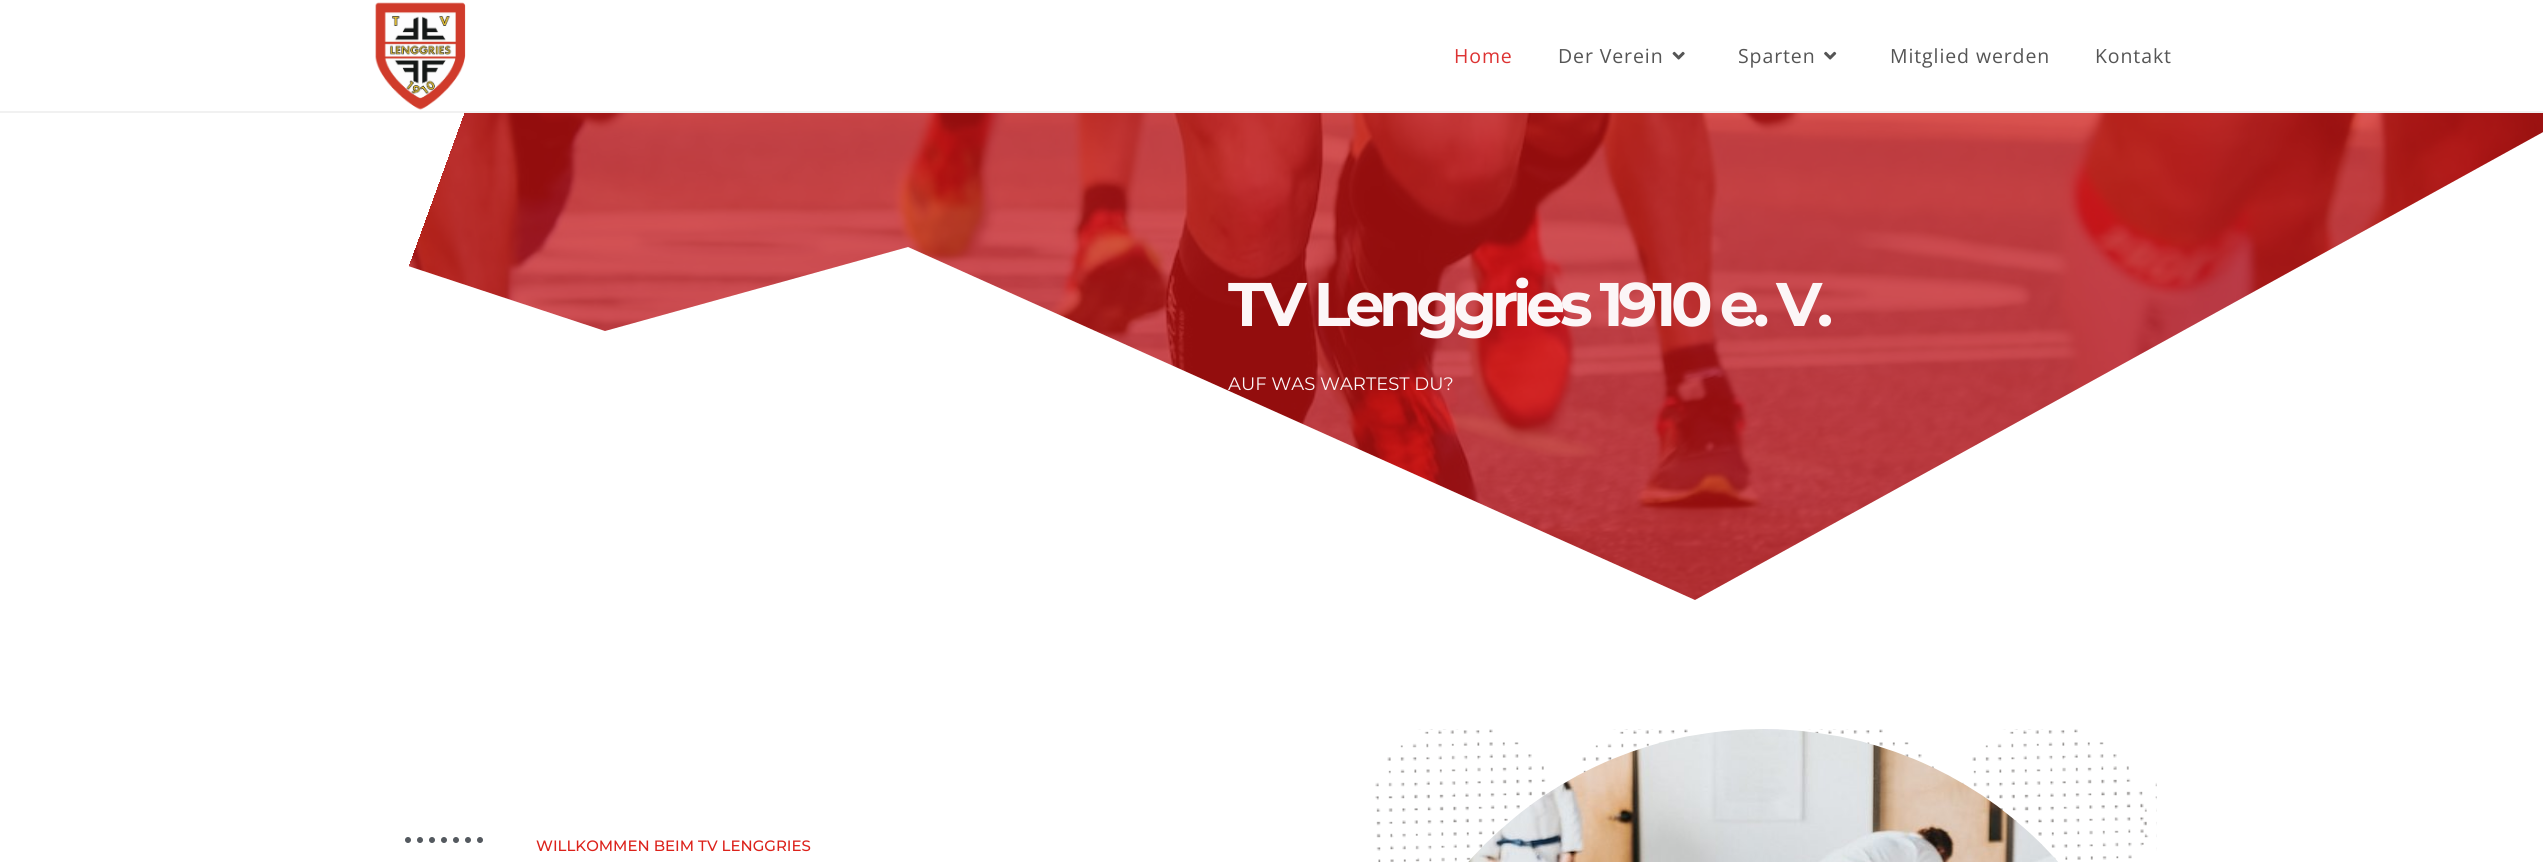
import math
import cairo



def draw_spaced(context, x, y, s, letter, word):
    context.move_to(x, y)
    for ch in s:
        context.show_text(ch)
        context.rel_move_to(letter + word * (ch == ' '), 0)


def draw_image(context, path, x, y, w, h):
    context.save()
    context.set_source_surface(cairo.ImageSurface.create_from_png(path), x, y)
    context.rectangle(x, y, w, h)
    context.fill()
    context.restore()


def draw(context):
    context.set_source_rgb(1, 1, 1)
    context.paint()
    context.set_source_rgb(241 / 255, 241 / 255, 241 / 255)
    context.rectangle(0, 111, 2543, 2)
    context.fill()
    draw_image(context, "images/1.png", 375, 2, 91, 108)
    draw_image(context, "images/2.png", 1672, 51, 13, 9)
    draw_image(context, "images/3.png", 1824, 51, 13, 9)
    draw_image(context, "images/4.png", 0, 113, 2543, 487)
    context.set_source_rgb(1, 1, 1)
    context.new_path()
    context.move_to(605, 331)
    context.line_to(908, 247)
    context.line_to(1695, 600)
    context.line_to(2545, 131)
    context.line_to(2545, 632)
    context.line_to(-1, 632)
    context.line_to(-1, 131)
    context.fill()
    context.new_path()
    context.move_to(408, 840)
    context.line_to(483, 840)
    context.set_source_rgb(84 / 255, 89 / 255, 95 / 255)
    context.set_line_width(6)
    context.set_line_cap(cairo.LineCap.ROUND)
    context.set_dash([0, 12])
    context.stroke()
    draw_image(context, "images/5.png", 1375, 729, 782, 133)
    draw_image(context, "images/6.png", 1468, 729, 590, 133)
    context.select_font_face("Open Sans")
    context.set_font_size(19.5)
    context.set_source_rgb(221 / 255, 51 / 255, 51 / 255)
    draw_spaced(context, 1454, 63, "Home", 0.9, 0)
    context.set_source_rgb(85 / 255, 85 / 255, 85 / 255)
    draw_spaced(context, 1558, 63, "Der Verein", 0.9, 0)
    draw_spaced(context, 1738, 63, "Sparten", 0.9, 0)
    draw_spaced(context, 1890, 63, "Mitglied werden", 0.9, 0)
    draw_spaced(context, 2095, 63, "Kontakt", 0.9, 0)
    context.select_font_face("Montserrat", cairo.FontSlant.NORMAL, cairo.FontWeight.BOLD)
    context.set_font_size(61.5)
    context.set_source_rgb(252 / 255, 246 / 255, 247 / 255)
    draw_spaced(context, 1228, 326, "TV Lenggries 1910 e. V.", -5.25, 0)
    context.select_font_face("Montserrat")
    context.set_font_size(18)
    context.move_to(1228, 390)
    context.show_text("AUF WAS WARTEST DU?")
    context.select_font_face("Montserrat Medium")
    context.set_font_size(15)
    context.set_source_rgb(220 / 255, 34 / 255, 27 / 255)
    context.move_to(536, 851)
    context.show_text("WILLKOMMEN BEIM TV LENGGRIES")


surface = cairo.ImageSurface(cairo.Format.RGB24, 2543, 862)
context = cairo.Context(surface)
options = cairo.FontOptions()
options.set_hint_metrics(cairo.HintMetrics.OFF)
options.set_hint_style(cairo.HintStyle.NONE)
context.set_font_options(options)
context.set_miter_limit(4)
draw(context)
surface.write_to_png("out.png")
